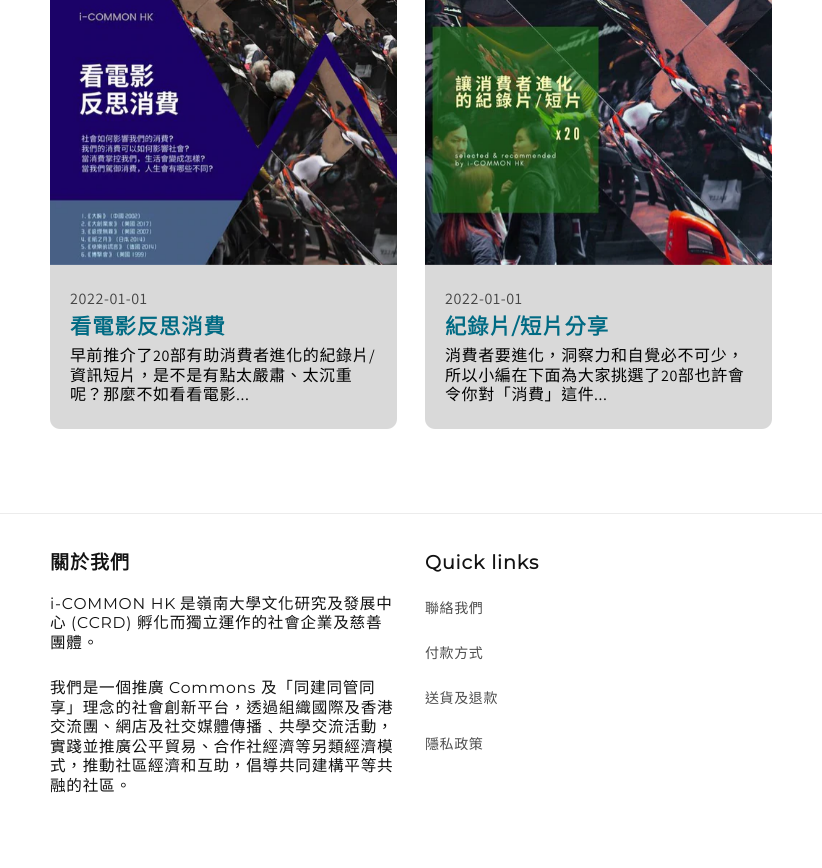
import math
import cairo



def draw_spaced(context, x, y, s, letter, word):
    context.move_to(x, y)
    for ch in s:
        context.show_text(ch)
        context.rel_move_to(letter + word * (ch == ' '), 0)


def rounded_rect(context, x, y, w, h, r):
    context.new_sub_path()
    for i, (u, v) in enumerate([(x + w - r, y + h - r), (x + r, y + h - r), (x + r, y + r), (x + w - r, y + r)]):
        context.arc(u, v, r, i * math.pi / 2, (i + 1) * math.pi / 2)
    context.close_path()


def draw_image(context, path, x, y, w, h):
    context.save()
    context.set_source_surface(cairo.ImageSurface.create_from_png(path), x, y)
    context.rectangle(x, y, w, h)
    context.fill()
    context.restore()


def draw(context):
    context.set_source_rgb(1, 1, 1)
    context.paint()
    context.set_source_rgb(217 / 255, 217 / 255, 217 / 255)
    rounded_rect(context, 50, -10, 347, 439, 10)
    context.fill()
    draw_image(context, "images/1.png", 50, 0, 347, 265)
    rounded_rect(context, 425, -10, 347, 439, 10)
    context.fill()
    draw_image(context, "images/2.png", 425, 0, 347, 265)
    context.set_source_rgb(236 / 255, 236 / 255, 236 / 255)
    context.rectangle(0, 513, 822, 1)
    context.fill()
    context.select_font_face("Assistant")
    context.set_font_size(16)
    context.set_source_rgb(68 / 255, 68 / 255, 68 / 255)
    draw_spaced(context, 70, 304, "2022-01-01", 0.6, 0)
    context.select_font_face("Noto Sans CJK TC", cairo.FontSlant.NORMAL, cairo.FontWeight.BOLD)
    context.set_font_size(21.5)
    context.set_source_rgb(0, 106 / 255, 131 / 255)
    draw_spaced(context, 70, 334, "看電影反思消費", 0.75, 0)
    context.select_font_face("Noto Sans CJK TC")
    context.set_font_size(16)
    context.set_source_rgb(0, 0, 0)
    draw_spaced(context, 70, 361, "早前推介了", 0.6, 0)
    context.select_font_face("Assistant")
    draw_spaced(context, 153, 361, "20", 0.6, 0)
    context.select_font_face("Noto Sans CJK TC")
    draw_spaced(context, 170, 361, "部有助消費者進化的紀錄片", 0.6, 0)
    context.select_font_face("Assistant")
    draw_spaced(context, 369, 361, "/", 0.6, 0)
    context.select_font_face("Noto Sans CJK TC")
    draw_spaced(context, 70, 381, "資訊短片，是不是有點太嚴肅、太沉重", 0.6, 0)
    draw_spaced(context, 70, 400, "呢？那麼不如看看電影", 0.6, 0)
    context.select_font_face("Assistant")
    draw_spaced(context, 236, 400, "...", 0.6, 0)
    context.set_source_rgb(68 / 255, 68 / 255, 68 / 255)
    draw_spaced(context, 445, 304, "2022-01-01", 0.6, 0)
    context.select_font_face("Noto Sans CJK TC", cairo.FontSlant.NORMAL, cairo.FontWeight.BOLD)
    context.set_font_size(21.5)
    context.set_source_rgb(0, 106 / 255, 131 / 255)
    draw_spaced(context, 445, 334, "紀錄片", 0.75, 0)
    context.select_font_face("Montserrat", cairo.FontSlant.NORMAL, cairo.FontWeight.BOLD)
    draw_spaced(context, 512, 334, "/", 0.75, 0)
    context.select_font_face("Noto Sans CJK TC", cairo.FontSlant.NORMAL, cairo.FontWeight.BOLD)
    draw_spaced(context, 520, 334, "短片分享", 0.75, 0)
    context.select_font_face("Noto Sans CJK TC")
    context.set_font_size(16)
    context.set_source_rgb(0, 0, 0)
    draw_spaced(context, 445, 361, "消費者要進化，洞察力和自覺必不可少，", 0.6, 0)
    draw_spaced(context, 445, 381, "所以小編在下面為大家挑選了", 0.6, 0)
    context.select_font_face("Assistant")
    draw_spaced(context, 661, 381, "20", 0.6, 0)
    context.select_font_face("Noto Sans CJK TC")
    draw_spaced(context, 678, 381, "部也許會", 0.6, 0)
    draw_spaced(context, 445, 400, "令你對「消費」這件", 0.6, 0)
    context.select_font_face("Assistant")
    draw_spaced(context, 594, 400, "...", 0.6, 0)
    context.select_font_face("Noto Sans CJK TC", cairo.FontSlant.NORMAL, cairo.FontWeight.BOLD)
    context.set_font_size(19.25)
    context.set_source_rgb(18 / 255, 18 / 255, 18 / 255)
    draw_spaced(context, 50, 569, "關於我們", 0.75, 0)
    context.select_font_face("Montserrat")
    context.set_font_size(15.6)
    draw_spaced(context, 50, 609, "i-COMMON HK", 0.75, 0)
    context.select_font_face("Noto Sans CJK TC")
    draw_spaced(context, 180, 609, "是嶺南大學文化研究及發展中", 0.75, 0)
    draw_spaced(context, 50, 628, "心", 0.75, 0)
    context.select_font_face("Montserrat")
    draw_spaced(context, 71, 628, "(CCRD)", 0.75, 0)
    context.select_font_face("Noto Sans CJK TC")
    draw_spaced(context, 137, 628, "孵化而獨立運作的社會企業及慈善", 0.75, 0)
    draw_spaced(context, 50, 648, "團體。", 0.75, 0)
    draw_spaced(context, 50, 693, "我們是一個推廣", 0.75, 0)
    context.select_font_face("Montserrat")
    draw_spaced(context, 169, 693, "Commons", 0.75, 0)
    context.select_font_face("Noto Sans CJK TC")
    draw_spaced(context, 261, 693, "及「同建同管同", 0.75, 0)
    draw_spaced(context, 50, 713, "享」理念的社會創新平台，透過組織國際及香港", 0.75, 0)
    draw_spaced(context, 50, 732, "交流團、網店及社交媒體傳播﹑共學交流活動，", 0.75, 0)
    draw_spaced(context, 50, 752, "實踐並推廣公平貿易、合作社經濟等另類經濟模", 0.75, 0)
    draw_spaced(context, 50, 771, "式，推動社區經濟和互助，倡導共同建構平等共", 0.75, 0)
    draw_spaced(context, 50, 791, "融的社區。", 0.75, 0)
    context.select_font_face("Montserrat", cairo.FontSlant.NORMAL, cairo.FontWeight.BOLD)
    context.set_font_size(19.25)
    draw_spaced(context, 425, 569, "Quick links", 0.75, 0)
    context.select_font_face("Noto Sans CJK TC")
    context.set_font_size(14)
    context.set_source_rgb(77 / 255, 77 / 255, 77 / 255)
    draw_spaced(context, 425, 613, "聯絡我們", 0.6, 0)
    draw_spaced(context, 425, 658, "付款方式", 0.6, 0)
    draw_spaced(context, 425, 703, "送貨及退款", 0.6, 0)
    draw_spaced(context, 425, 749, "隱私政策", 0.6, 0)


surface = cairo.ImageSurface(cairo.Format.RGB24, 822, 868)
context = cairo.Context(surface)
options = cairo.FontOptions()
options.set_hint_metrics(cairo.HintMetrics.OFF)
options.set_hint_style(cairo.HintStyle.NONE)
context.set_font_options(options)
context.set_miter_limit(4)
draw(context)
surface.write_to_png("out.png")
